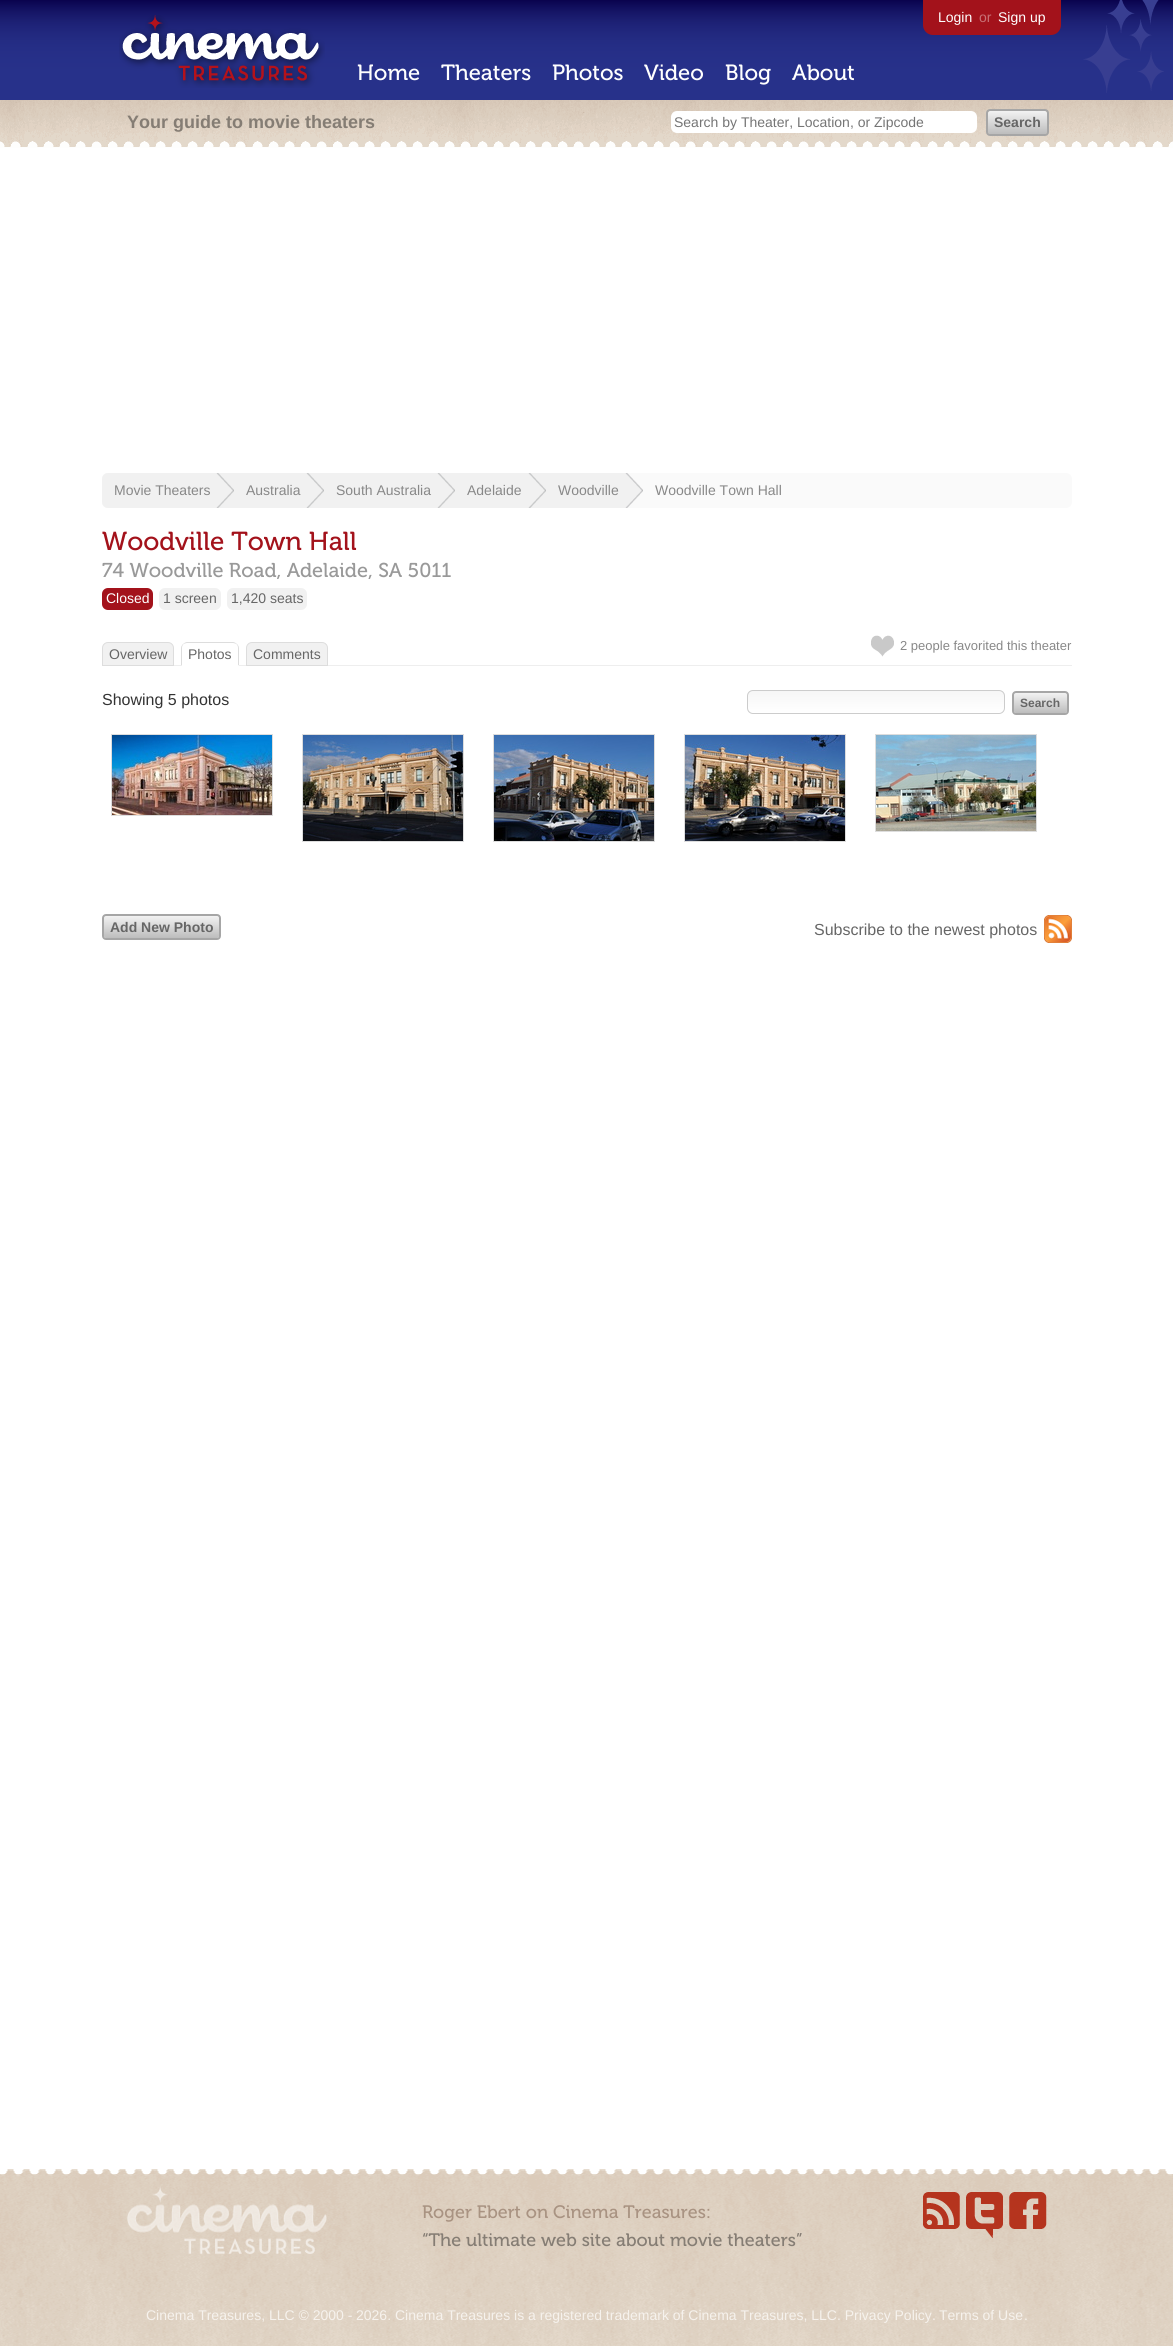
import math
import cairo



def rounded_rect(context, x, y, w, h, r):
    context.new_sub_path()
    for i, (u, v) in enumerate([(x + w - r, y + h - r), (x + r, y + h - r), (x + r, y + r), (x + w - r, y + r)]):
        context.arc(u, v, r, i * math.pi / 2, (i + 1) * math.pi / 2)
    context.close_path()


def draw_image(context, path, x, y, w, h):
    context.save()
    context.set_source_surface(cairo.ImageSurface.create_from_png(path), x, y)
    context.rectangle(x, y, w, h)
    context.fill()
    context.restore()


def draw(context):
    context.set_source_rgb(1, 1, 1)
    context.paint()
    draw_image(context, "images/1.png", 0, 0, 1173, 100)
    draw_image(context, "images/2.png", 119, 15, 206, 73)
    context.set_source_rgb(163 / 255, 18 / 255, 27 / 255)
    context.new_path()
    context.move_to(923, 0)
    context.line_to(1061, 0)
    context.line_to(1061, 25)
    context.curve_to(1061, 30.5, 1056.5, 35, 1051, 35)
    context.line_to(933, 35)
    context.curve_to(927.5, 35, 923, 30.5, 923, 25)
    context.close_path()
    context.fill()
    draw_image(context, "images/3.png", 1083, 0, 81, 93)
    draw_image(context, "images/4.png", 0, 100, 1173, 48)
    context.set_source_rgb(1, 1, 1)
    rounded_rect(context, 671, 111, 306, 22, 6)
    context.fill()
    gradient = cairo.LinearGradient(1018, 111, 1018, 134)
    gradient.add_color_stop_rgba(0, 242 / 255, 242 / 255, 242 / 255, 1)
    gradient.add_color_stop_rgba(1, 189 / 255, 189 / 255, 189 / 255, 1)
    context.set_source(gradient)
    rounded_rect(context, 988, 111, 59, 23, 2)
    context.fill()
    rounded_rect(context, 987, 110, 61, 25, 3)
    context.set_source_rgb(166 / 255, 166 / 255, 166 / 255)
    context.stroke()
    context.set_source_rgb(250 / 255, 250 / 255, 250 / 255)
    rounded_rect(context, 102, 473, 970, 35, 6)
    context.fill()
    context.set_source_rgb(241 / 255, 241 / 255, 241 / 255)
    context.new_path()
    context.move_to(108, 473)
    context.line_to(234, 473)
    context.line_to(234, 508)
    context.line_to(108, 508)
    context.curve_to(104.5, 508, 102, 505.5, 102, 502)
    context.line_to(102, 479)
    context.curve_to(102, 475.5, 104.5, 473, 108, 473)
    context.close_path()
    context.fill()
    draw_image(context, "images/5.png", 216, 473, 18, 35)
    context.rectangle(234, 473, 409, 35)
    context.fill()
    draw_image(context, "images/5.png", 306, 473, 18, 35)
    draw_image(context, "images/5.png", 437, 473, 18, 35)
    draw_image(context, "images/5.png", 528, 473, 18, 35)
    draw_image(context, "images/6.png", 625, 473, 18, 35)
    context.set_source_rgb(163 / 255, 18 / 255, 27 / 255)
    rounded_rect(context, 102, 588, 51, 22, 6)
    context.fill()
    context.set_source_rgb(241 / 255, 241 / 255, 241 / 255)
    rounded_rect(context, 159, 588, 62, 22, 6)
    context.fill()
    rounded_rect(context, 227, 588, 80, 22, 6)
    context.fill()
    context.set_source_rgb(238 / 255, 238 / 255, 238 / 255)
    context.rectangle(174, 665, 898, 1)
    context.fill()
    context.set_source_rgb(241 / 255, 241 / 255, 241 / 255)
    context.new_path()
    context.move_to(108, 642.5)
    context.line_to(168, 642.5)
    context.curve_to(171, 642.5, 173.5, 645, 173.5, 648)
    context.line_to(173.5, 665.5)
    context.line_to(102.5, 665.5)
    context.line_to(102.5, 648)
    context.curve_to(102.5, 645, 105, 642.5, 108, 642.5)
    context.close_path()
    context.fill_preserve()
    context.set_source_rgb(221 / 255, 221 / 255, 221 / 255)
    context.set_line_width(1)
    context.stroke()
    context.set_source_rgb(1, 1, 1)
    context.new_path()
    context.move_to(187, 642)
    context.line_to(233, 642)
    context.curve_to(236.5, 642, 239, 644.5, 239, 648)
    context.line_to(239, 666)
    context.line_to(181, 666)
    context.line_to(181, 648)
    context.curve_to(181, 644.5, 183.5, 642, 187, 642)
    context.close_path()
    context.fill()
    context.set_source_rgb(221 / 255, 221 / 255, 221 / 255)
    context.new_path()
    context.move_to(187, 642)
    context.curve_to(186, 642, 184, 643, 183, 644)
    context.curve_to(184, 644, 186, 643, 187, 643)
    context.line_to(233, 643)
    context.curve_to(234, 643, 236, 644, 237, 644)
    context.curve_to(236, 643, 234, 642, 233, 642)
    context.close_path()
    context.move_to(239, 666)
    context.line_to(239, 648)
    context.curve_to(239, 646.5, 238, 645, 237, 644)
    context.line_to(236.5, 644.5)
    context.curve_to(237.5, 645, 238, 646.5, 238, 648)
    context.line_to(238, 665)
    context.close_path()
    context.fill()
    context.set_source_rgb(1, 1, 1)
    context.new_path()
    context.move_to(239, 666)
    context.line_to(238, 665)
    context.line_to(182, 665)
    context.line_to(181, 666)
    context.close_path()
    context.fill()
    context.set_source_rgb(221 / 255, 221 / 255, 221 / 255)
    context.new_path()
    context.move_to(181, 666)
    context.line_to(182, 665)
    context.line_to(182, 648)
    context.curve_to(182, 646.5, 182.5, 645, 183.5, 644.5)
    context.line_to(183, 644)
    context.curve_to(182, 645, 181, 646.5, 181, 648)
    context.close_path()
    context.fill()
    context.set_source_rgb(241 / 255, 241 / 255, 241 / 255)
    context.new_path()
    context.move_to(252, 642.5)
    context.line_to(322, 642.5)
    context.curve_to(325, 642.5, 327.5, 645, 327.5, 648)
    context.line_to(327.5, 665.5)
    context.line_to(246.5, 665.5)
    context.line_to(246.5, 648)
    context.curve_to(246.5, 645, 249, 642.5, 252, 642.5)
    context.close_path()
    context.fill_preserve()
    context.set_source_rgb(221 / 255, 221 / 255, 221 / 255)
    context.stroke()
    draw_image(context, "images/7.png", 871, 635, 23, 22)
    context.save()
    rounded_rect(context, 747, 690, 258, 24, 6)
    context.clip()
    gradient = cairo.LinearGradient(876, 691, 876, 713)
    gradient.add_color_stop_rgba(0, 246 / 255, 246 / 255, 246 / 255, 1)
    gradient.add_color_stop_rgba(1, 1, 1, 1, 1)
    context.set_source(gradient)
    context.rectangle(747, 691, 258, 22)
    context.fill()
    context.restore()
    rounded_rect(context, 747.5, 690.5, 257, 23, 5.5)
    context.set_source_rgb(204 / 255, 204 / 255, 204 / 255)
    context.stroke()
    gradient = cairo.LinearGradient(1041, 693, 1041, 713)
    gradient.add_color_stop_rgba(0, 242 / 255, 242 / 255, 242 / 255, 1)
    gradient.add_color_stop_rgba(1, 189 / 255, 189 / 255, 189 / 255, 1)
    context.set_source(gradient)
    rounded_rect(context, 1014, 693, 53, 20, 2)
    context.fill()
    rounded_rect(context, 1013, 692, 55, 22, 3)
    context.set_source_rgb(166 / 255, 166 / 255, 166 / 255)
    context.set_line_width(2)
    context.stroke()
    context.rectangle(111.5, 734.5, 161, 81)
    context.set_source_rgb(221 / 255, 221 / 255, 221 / 255)
    context.set_line_width(1)
    context.stroke()
    draw_image(context, "images/8.png", 112, 735, 160, 80)
    context.rectangle(302.5, 734.5, 161, 107)
    context.stroke()
    draw_image(context, "images/9.png", 303, 735, 160, 106)
    context.rectangle(493.5, 734.5, 161, 107)
    context.stroke()
    draw_image(context, "images/10.png", 494, 735, 160, 106)
    context.rectangle(684.5, 734.5, 161, 107)
    context.stroke()
    draw_image(context, "images/11.png", 685, 735, 160, 106)
    context.rectangle(875.5, 734.5, 161, 97)
    context.stroke()
    draw_image(context, "images/12.png", 876, 735, 160, 96)
    gradient = cairo.LinearGradient(162, 916, 162, 938)
    gradient.add_color_stop_rgba(0, 242 / 255, 242 / 255, 242 / 255, 1)
    gradient.add_color_stop_rgba(1, 189 / 255, 189 / 255, 189 / 255, 1)
    context.set_source(gradient)
    rounded_rect(context, 104, 916, 115, 22, 2)
    context.fill()
    rounded_rect(context, 103, 915, 117, 24, 3)
    context.set_source_rgb(166 / 255, 166 / 255, 166 / 255)
    context.set_line_width(2)
    context.stroke()
    draw_image(context, "images/13.png", 1044, 915, 28, 28)
    draw_image(context, "images/14.png", 0, 2169, 1173, 177)
    draw_image(context, "images/15.png", 127, 2186, 200, 68)
    draw_image(context, "images/16.png", 923, 2192, 37, 37)
    draw_image(context, "images/17.png", 966, 2192, 37, 46)
    draw_image(context, "images/18.png", 1009, 2192, 38, 37)
    context.select_font_face("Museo")
    context.set_font_size(22)
    context.set_source_rgb(1, 1, 1)
    context.move_to(357, 80)
    context.show_text("Home")
    context.move_to(441, 80)
    context.show_text("Theaters")
    context.move_to(552, 80)
    context.show_text("Photos")
    context.move_to(644, 80)
    context.show_text("Video")
    context.move_to(725, 80)
    context.show_text("Blog")
    context.move_to(792, 80)
    context.show_text("About")
    context.select_font_face("Liberation Sans")
    context.set_font_size(14)
    context.move_to(938, 22)
    context.show_text("Login")
    context.set_source_rgb(200 / 255, 113 / 255, 118 / 255)
    context.move_to(979, 22)
    context.show_text("or")
    context.set_source_rgb(1, 1, 1)
    context.move_to(998, 22)
    context.show_text("Sign up")
    context.select_font_face("Liberation Sans", cairo.FontSlant.NORMAL, cairo.FontWeight.BOLD)
    context.set_font_size(18)
    context.set_source_rgb(133 / 255, 125 / 255, 116 / 255)
    context.move_to(127, 128)
    context.show_text("Your guide to movie theaters")
    context.select_font_face("Liberation Sans")
    context.set_font_size(14)
    context.set_source_rgb(117 / 255, 117 / 255, 117 / 255)
    context.move_to(674, 127)
    context.show_text("Search by Theater, Location, or Zipcode")
    context.select_font_face("Liberation Sans", cairo.FontSlant.NORMAL, cairo.FontWeight.BOLD)
    context.set_source_rgb(102 / 255, 102 / 255, 102 / 255)
    context.move_to(994, 127)
    context.show_text("Search")
    context.select_font_face("Liberation Sans")
    context.set_source_rgb(136 / 255, 136 / 255, 136 / 255)
    context.move_to(114, 495)
    context.show_text("Movie Theaters")
    context.move_to(246, 495)
    context.show_text("Australia")
    context.move_to(336, 495)
    context.show_text("South Australia")
    context.move_to(467, 495)
    context.show_text("Adelaide")
    context.move_to(558, 495)
    context.show_text("Woodville")
    context.move_to(655, 495)
    context.show_text("Woodville Town Hall")
    context.select_font_face("Museo")
    context.set_font_size(26)
    context.set_source_rgb(163 / 255, 18 / 255, 27 / 255)
    context.move_to(102, 550)
    context.show_text("Woodville Town Hall")
    context.set_font_size(20)
    context.set_source_rgb(153 / 255, 153 / 255, 153 / 255)
    context.move_to(102, 577)
    context.show_text("74 Woodville Road, Adelaide, SA 5011")
    context.select_font_face("Liberation Sans")
    context.set_font_size(14)
    context.set_source_rgb(1, 1, 1)
    context.move_to(106, 603)
    context.show_text("Closed")
    context.set_source_rgb(102 / 255, 102 / 255, 102 / 255)
    context.move_to(163, 603)
    context.show_text("1 screen")
    context.move_to(231, 603)
    context.show_text("1,420 seats")
    context.move_to(109, 659)
    context.show_text("Overview")
    context.move_to(188, 659)
    context.show_text("Photos")
    context.move_to(253, 659)
    context.show_text("Comments")
    context.set_font_size(13)
    context.set_source_rgb(136 / 255, 136 / 255, 136 / 255)
    context.move_to(900, 650)
    context.show_text("2 people favorited this theater")
    context.set_font_size(16)
    context.set_source_rgb(51 / 255, 51 / 255, 51 / 255)
    context.move_to(102, 705)
    context.show_text("Showing 5 photos")
    context.select_font_face("Liberation Sans", cairo.FontSlant.NORMAL, cairo.FontWeight.BOLD)
    context.set_font_size(12)
    context.set_source_rgb(102 / 255, 102 / 255, 102 / 255)
    context.move_to(1020, 707)
    context.show_text("Search")
    context.set_font_size(14)
    context.move_to(110, 932)
    context.show_text("Add New Photo")
    context.select_font_face("Liberation Sans")
    context.set_font_size(16)
    context.move_to(814, 935)
    context.show_text("Subscribe to the newest photos")
    context.select_font_face("Museo")
    context.set_font_size(18)
    context.set_source_rgb(169 / 255, 147 / 255, 130 / 255)
    context.move_to(422, 2218)
    context.show_text("Roger Ebert on Cinema Treasures:")
    context.set_source_rgb(133 / 255, 125 / 255, 116 / 255)
    context.move_to(422, 2246)
    context.show_text("“The ultimate web site about movie theaters”")
    context.select_font_face("Liberation Sans")
    context.set_font_size(14)
    context.set_source_rgb(246 / 255, 242 / 255, 237 / 255)
    context.move_to(146, 2320)
    context.show_text("Cinema Treasures, LLC © 2000 -")
    context.move_to(356, 2320)
    context.show_text("2026.")
    context.move_to(395, 2320)
    context.show_text("Cinema Treasures is a registered trademark of Cinema Treasures, LLC. Privacy Policy")
    context.move_to(932, 2320)
    context.show_text(".")
    context.move_to(939, 2320)
    context.show_text("Terms of Use")
    context.move_to(1024, 2320)
    context.show_text(".")


surface = cairo.ImageSurface(cairo.Format.RGB24, 1173, 2346)
context = cairo.Context(surface)
options = cairo.FontOptions()
options.set_hint_metrics(cairo.HintMetrics.OFF)
options.set_hint_style(cairo.HintStyle.NONE)
context.set_font_options(options)
context.set_miter_limit(4)
draw(context)
surface.write_to_png("out.png")
